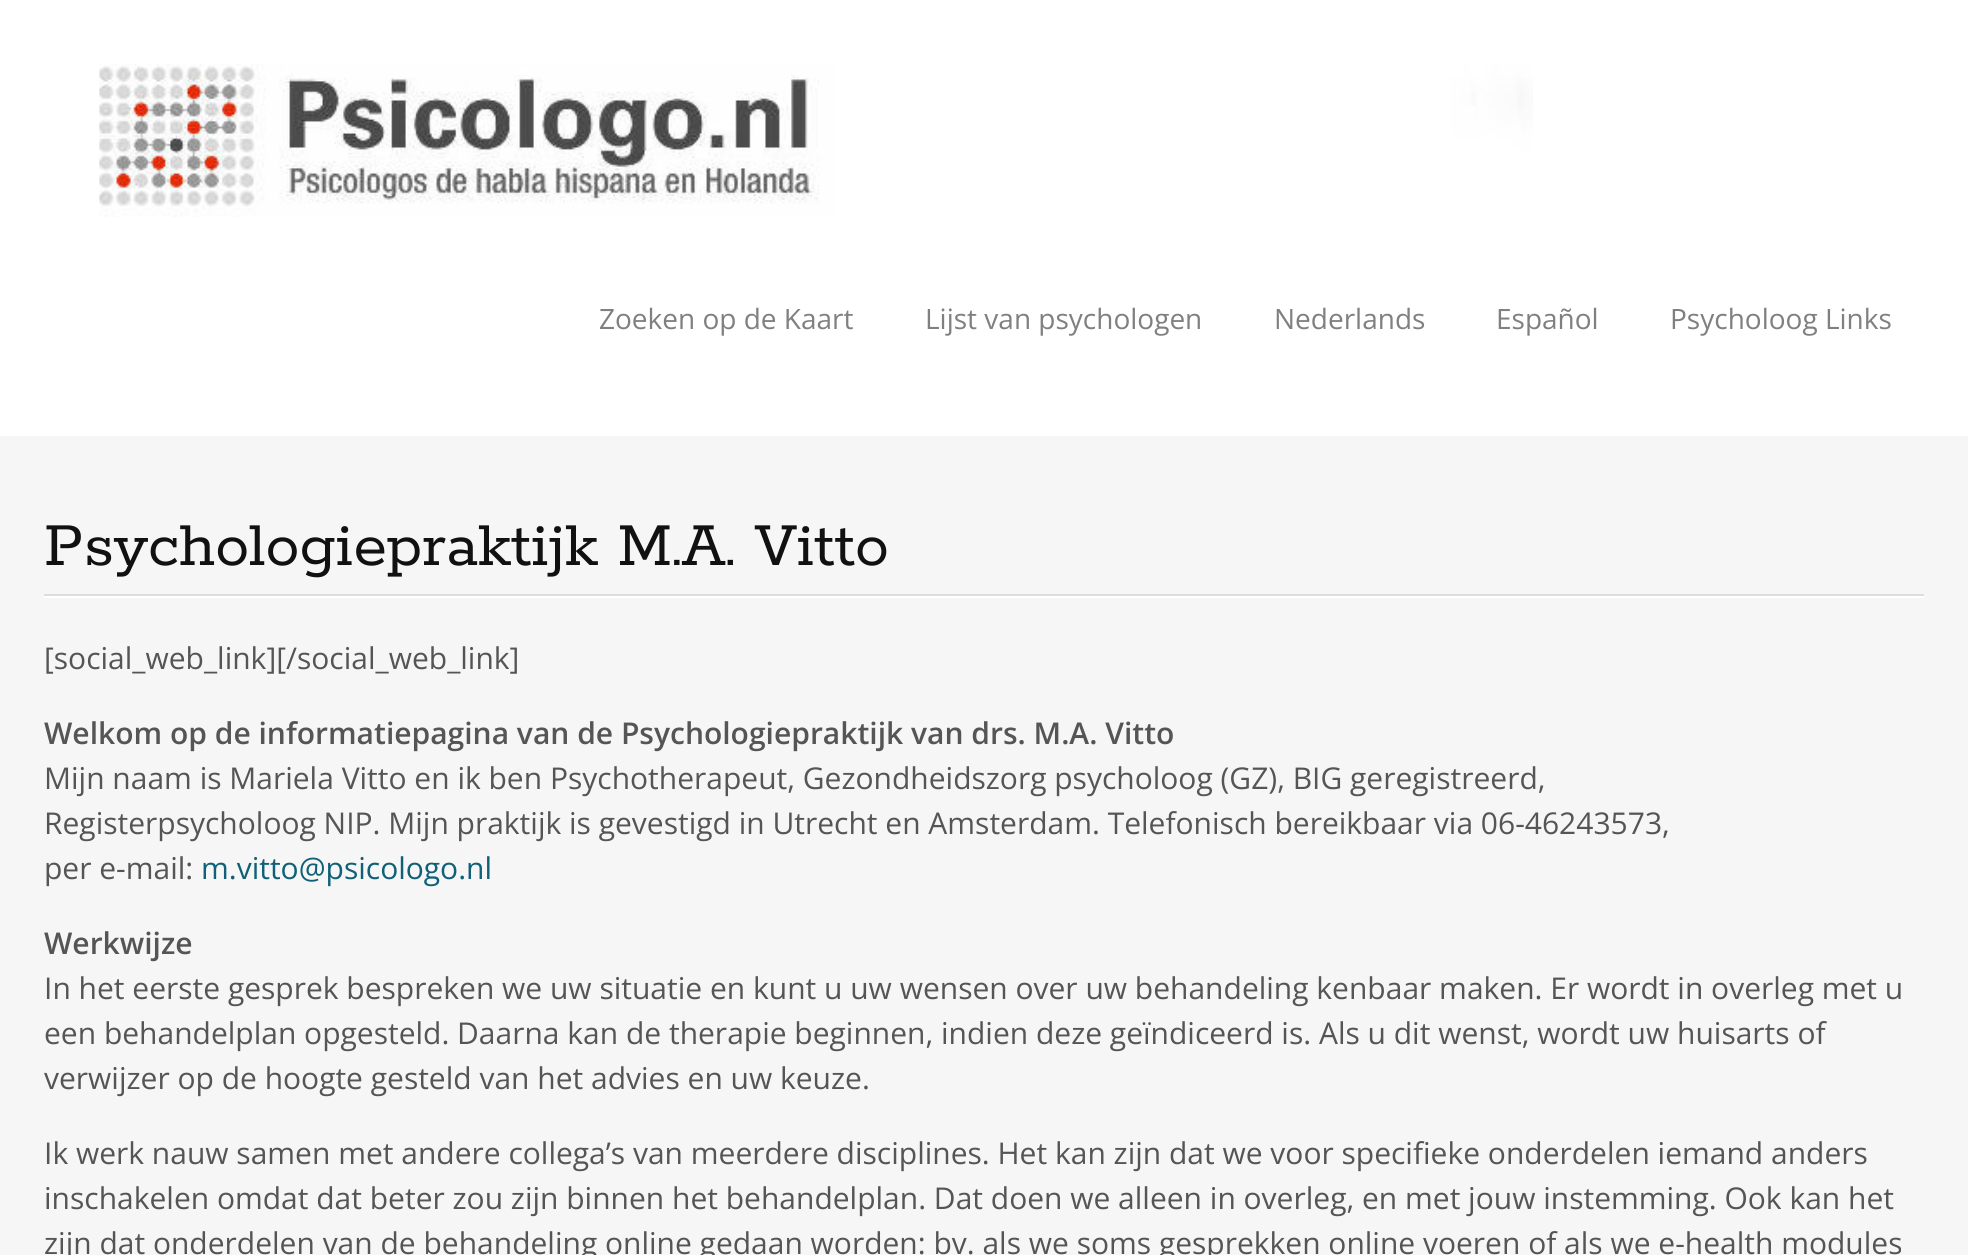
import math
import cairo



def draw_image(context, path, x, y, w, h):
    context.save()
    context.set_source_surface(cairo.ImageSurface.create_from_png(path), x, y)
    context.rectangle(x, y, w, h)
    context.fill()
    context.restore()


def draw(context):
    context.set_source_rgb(246 / 255, 246 / 255, 246 / 255)
    context.paint()
    context.set_source_rgb(1, 1, 1)
    context.rectangle(0, 0, 1968, 436)
    context.fill()
    draw_image(context, "images/1.png", 99, 64, 1434, 153)
    context.rectangle(44, 596, 1880, 2)
    context.fill()
    context.set_source_rgb(221 / 255, 221 / 255, 221 / 255)
    context.rectangle(44, 594, 1880, 2)
    context.fill()
    context.select_font_face("Open Sans")
    context.set_font_size(28)
    context.set_source_rgb(128 / 255, 128 / 255, 128 / 255)
    context.move_to(599, 329)
    context.show_text("Zoeken op de Kaart")
    context.move_to(925, 329)
    context.show_text("Lijst van psychologen")
    context.move_to(1274, 329)
    context.show_text("Nederlands")
    context.move_to(1496, 329)
    context.show_text("Español")
    context.move_to(1670, 329)
    context.show_text("Psycholoog Links")
    context.select_font_face("Rokkitt")
    context.set_font_size(68)
    context.set_source_rgb(17 / 255, 17 / 255, 17 / 255)
    context.move_to(44, 565)
    context.show_text("Psychologiepraktijk M.A. Vitto")
    context.select_font_face("Open Sans")
    context.set_font_size(30)
    context.set_source_rgb(85 / 255, 85 / 255, 85 / 255)
    context.move_to(44, 669)
    context.show_text("[social_web_link][/social_web_link]")
    context.select_font_face("Open Sans SemiBold")
    context.move_to(44, 744)
    context.show_text("Welkom op de informatiepagina van de Psychologiepraktijk van drs. M.A. Vitto")
    context.select_font_face("Open Sans")
    context.move_to(44, 789)
    context.show_text("Mijn naam is Mariela Vitto en ik ben Psychotherapeut, Gezondheidszorg psycholoog (GZ), BIG geregistreerd,")
    context.move_to(44, 834)
    context.show_text("Registerpsycholoog NIP. Mijn praktijk is gevestigd in Utrecht en Amsterdam. Telefonisch bereikbaar via 06-46243573,")
    context.move_to(44, 879)
    context.show_text("per e-mail:")
    context.set_source_rgb(16 / 255, 97 / 255, 119 / 255)
    context.move_to(201, 879)
    context.show_text("m.vitto@psicologo.nl")
    context.select_font_face("Open Sans SemiBold")
    context.set_source_rgb(85 / 255, 85 / 255, 85 / 255)
    context.move_to(44, 954)
    context.show_text("Werkwijze")
    context.select_font_face("Open Sans")
    context.move_to(44, 999)
    context.show_text("In het eerste gesprek bespreken we uw situatie en kunt u uw wensen over uw behandeling kenbaar maken. Er wordt in overleg met u")
    context.move_to(44, 1044)
    context.show_text("een behandelplan opgesteld. Daarna kan de therapie beginnen, indien deze geïndiceerd is. Als u dit wenst, wordt uw huisarts of")
    context.move_to(44, 1089)
    context.show_text("verwijzer op de hoogte gesteld van het advies en uw keuze.")
    context.move_to(44, 1164)
    context.show_text("Ik werk nauw samen met andere collega’s van meerdere disciplines. Het kan zijn dat we voor specifieke onderdelen iemand anders")
    context.move_to(44, 1209)
    context.show_text("inschakelen omdat dat beter zou zijn binnen het behandelplan. Dat doen we alleen in overleg, en met jouw instemming. Ook kan het")
    context.move_to(44, 1254)
    context.show_text("zijn dat onderdelen van de behandeling online gedaan worden: bv. als we soms gesprekken online voeren of als we e-health modules")


surface = cairo.ImageSurface(cairo.Format.RGB24, 1968, 1255)
context = cairo.Context(surface)
options = cairo.FontOptions()
options.set_hint_metrics(cairo.HintMetrics.OFF)
options.set_hint_style(cairo.HintStyle.NONE)
context.set_font_options(options)
context.set_miter_limit(4)
draw(context)
surface.write_to_png("out.png")
